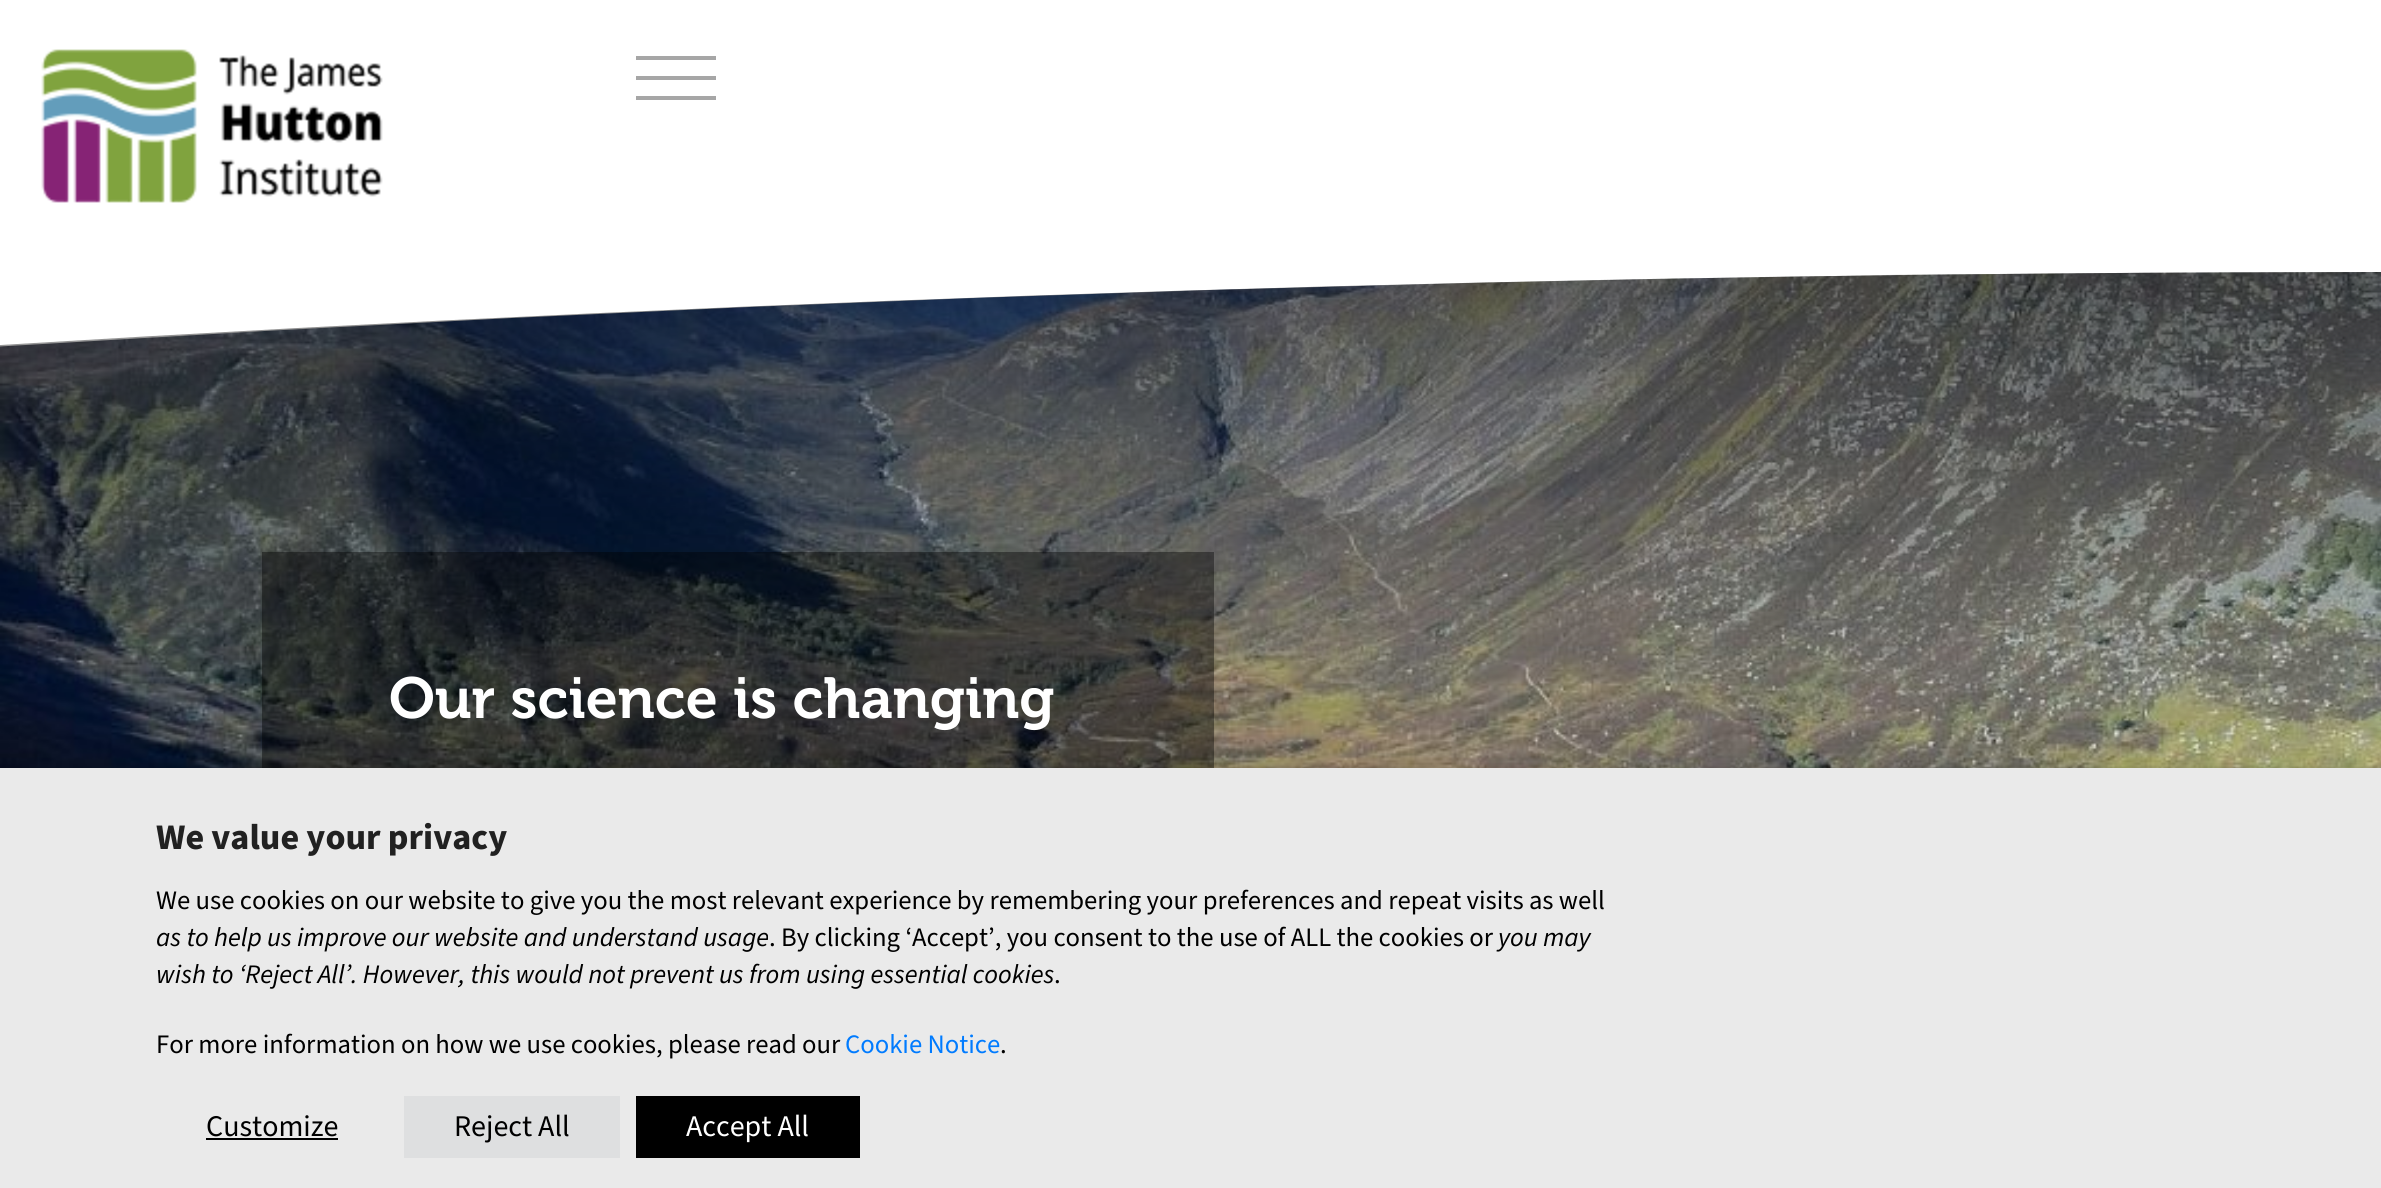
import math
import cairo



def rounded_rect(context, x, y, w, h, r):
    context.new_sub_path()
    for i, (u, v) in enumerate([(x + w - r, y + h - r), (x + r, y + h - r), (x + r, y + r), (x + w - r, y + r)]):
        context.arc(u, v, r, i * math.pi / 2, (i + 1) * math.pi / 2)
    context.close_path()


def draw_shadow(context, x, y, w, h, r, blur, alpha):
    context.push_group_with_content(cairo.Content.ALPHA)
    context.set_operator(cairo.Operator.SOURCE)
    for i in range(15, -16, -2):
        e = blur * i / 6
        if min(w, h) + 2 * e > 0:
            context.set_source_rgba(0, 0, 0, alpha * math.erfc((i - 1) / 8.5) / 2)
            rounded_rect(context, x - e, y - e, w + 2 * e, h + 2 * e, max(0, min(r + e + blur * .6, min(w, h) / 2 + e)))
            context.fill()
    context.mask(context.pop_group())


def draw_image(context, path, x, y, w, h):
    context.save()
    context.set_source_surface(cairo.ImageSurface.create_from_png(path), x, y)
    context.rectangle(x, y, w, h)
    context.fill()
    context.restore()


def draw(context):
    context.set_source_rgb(1, 1, 1)
    context.paint()
    draw_image(context, "images/1.png", 41, 49, 342, 154)
    context.set_source_rgb(166 / 255, 166 / 255, 166 / 255)
    context.rectangle(636, 76, 80, 4)
    context.fill()
    context.rectangle(636, 56, 80, 4)
    context.fill()
    context.rectangle(636, 96, 80, 4)
    context.fill()
    draw_image(context, "images/2.png", 0, 272, 2381, 496)
    gradient = cairo.LinearGradient(1191, 682, 1191, -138)
    gradient.add_color_stop_rgba(0, 0, 0, 0, 0)
    gradient.add_color_stop_rgba(1, 0, 0, 0, 1)
    context.set_source(gradient)
    context.new_path()
    context.move_to(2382, 272)
    context.line_to(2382, 682)
    context.line_to(0, 682)
    context.line_to(0, 345)
    context.curve_to(788, 297, 1582, 272, 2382, 272)
    context.close_path()
    context.fill()
    context.set_source_rgba(0, 0, 0, 0.4)
    context.rectangle(262, 552, 952, 216)
    context.fill()
    context.set_source_rgb(0, 0, 0)
    draw_shadow(context, 0, 778, 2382, 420, 0, 10, 0.5)
    context.set_source_rgb(234 / 255, 234 / 255, 234 / 255)
    context.rectangle(0, 768, 2381, 420)
    context.fill()
    context.set_source_rgb(0, 0, 0)
    context.rectangle(206, 1138, 132, 2)
    context.fill()
    context.set_source_rgb(222 / 255, 223 / 255, 224 / 255)
    context.rectangle(404, 1096, 216, 62)
    context.fill()
    context.set_source_rgb(0, 0, 0)
    context.rectangle(636, 1096, 224, 62)
    context.fill()
    context.select_font_face("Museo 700 SemiBold")
    context.set_font_size(57.6)
    context.set_source_rgb(1, 1, 1)
    context.move_to(389, 718)
    context.show_text("Our science is changing")
    context.select_font_face("Source Sans Pro", cairo.FontSlant.NORMAL, cairo.FontWeight.BOLD)
    context.set_font_size(36)
    context.set_source_rgb(33 / 255, 33 / 255, 33 / 255)
    context.move_to(156, 849)
    context.show_text("We value your privacy")
    context.select_font_face("Source Sans Pro")
    context.set_font_size(26.67)
    context.set_source_rgb(0, 0, 0)
    context.move_to(156, 909)
    context.show_text("We use cookies on our website to give you the most relevant experience by remembering your preferences and repeat visits as well")
    context.select_font_face("Source Sans Pro", cairo.FontSlant.ITALIC)
    context.move_to(156, 946)
    context.show_text("as to help us improve our website and understand usage")
    context.select_font_face("Source Sans Pro")
    context.move_to(769, 946)
    context.show_text(". By clicking ‘Accept’, you consent to the use of ALL the cookies or")
    context.select_font_face("Source Sans Pro", cairo.FontSlant.ITALIC)
    context.move_to(1498, 946)
    context.show_text("you may")
    context.move_to(156, 983)
    context.show_text("wish to ‘Reject All’. However, this would not prevent us from using essential cookies")
    context.select_font_face("Source Sans Pro")
    context.move_to(1054, 983)
    context.show_text(".")
    context.move_to(156, 1053)
    context.show_text("For more information on how we use cookies, please read our")
    context.set_source_rgb(0, 123 / 255, 1)
    context.move_to(845, 1053)
    context.show_text("Cookie Notice")
    context.set_source_rgb(0, 0, 0)
    context.move_to(1000, 1053)
    context.show_text(".")
    context.set_font_size(30)
    context.move_to(206, 1136)
    context.show_text("Customize")
    context.move_to(454, 1136)
    context.show_text("Reject All")
    context.set_source_rgb(1, 1, 1)
    context.move_to(686, 1136)
    context.show_text("Accept All")


surface = cairo.ImageSurface(cairo.Format.RGB24, 2381, 1188)
context = cairo.Context(surface)
options = cairo.FontOptions()
options.set_hint_metrics(cairo.HintMetrics.OFF)
options.set_hint_style(cairo.HintStyle.NONE)
context.set_font_options(options)
context.set_miter_limit(4)
draw(context)
surface.write_to_png("out.png")
